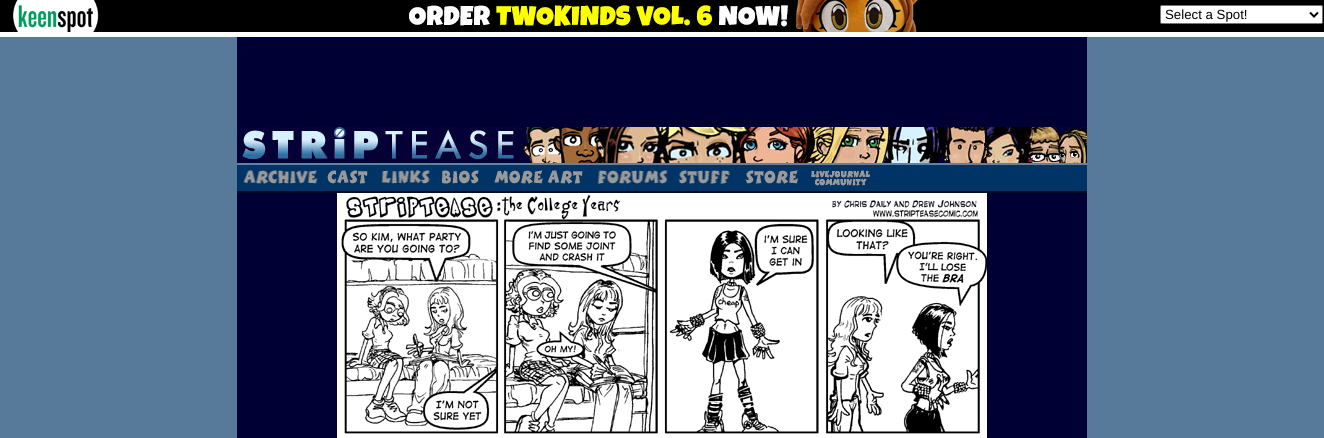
import math
import cairo



def rounded_rect(context, x, y, w, h, r):
    context.new_sub_path()
    for i, (u, v) in enumerate([(x + w - r, y + h - r), (x + r, y + h - r), (x + r, y + r), (x + w - r, y + r)]):
        context.arc(u, v, r, i * math.pi / 2, (i + 1) * math.pi / 2)
    context.close_path()


def draw_image(context, path, x, y, w, h):
    context.save()
    context.set_source_surface(cairo.ImageSurface.create_from_png(path), x, y)
    context.rectangle(x, y, w, h)
    context.fill()
    context.restore()


def draw(context):
    context.set_source_rgb(87 / 255, 121 / 255, 154 / 255)
    context.paint()
    context.set_source_rgb(0, 0, 0)
    context.rectangle(0, 0, 1324, 32)
    context.fill()
    context.set_source_rgb(1, 1, 1)
    context.rectangle(0, 32, 1324, 5)
    context.fill()
    draw_image(context, "images/1.png", 13, 0, 86, 32)
    draw_image(context, "images/2.png", 409, 0, 509, 32)
    rounded_rect(context, 1160.5, 5.5, 162, 18, 1.5)
    context.fill_preserve()
    context.set_source_rgb(118 / 255, 118 / 255, 118 / 255)
    context.set_line_width(1)
    context.stroke()
    context.new_path()
    context.move_to(1310, 12.5)
    context.line_to(1314, 16.5)
    context.line_to(1318, 12.5)
    context.set_source_rgb(0, 0, 0)
    context.set_line_width(2)
    context.stroke()
    context.set_source_rgb(0, 0, 52 / 255)
    context.rectangle(237, 37, 850, 401)
    context.fill()
    draw_image(context, "images/3.png", 237, 127, 850, 36)
    context.set_source_rgb(0, 51 / 255, 102 / 255)
    context.rectangle(237, 165, 850, 26)
    context.fill()
    context.set_source_rgb(98 / 255, 129 / 255, 160 / 255)
    context.rectangle(237, 163, 850, 2)
    context.fill()
    context.set_source_rgb(0, 14 / 255, 29 / 255)
    context.rectangle(237, 191, 850, 2)
    context.fill()
    draw_image(context, "images/4.png", 243, 170, 75, 14)
    draw_image(context, "images/5.png", 327, 170, 41, 14)
    draw_image(context, "images/6.png", 381, 170, 49, 14)
    draw_image(context, "images/7.png", 442, 170, 37, 14)
    draw_image(context, "images/8.png", 494, 170, 89, 14)
    draw_image(context, "images/9.png", 597, 170, 71, 14)
    draw_image(context, "images/10.png", 678, 170, 52, 14)
    draw_image(context, "images/11.png", 745, 170, 53, 14)
    draw_image(context, "images/12.png", 811, 170, 59, 16)
    draw_image(context, "images/13.png", 337, 193, 650, 245)
    context.select_font_face("Liberation Sans")
    context.set_font_size(13.25)
    context.set_source_rgb(0, 0, 0)
    context.move_to(1165, 19)
    context.show_text("Select a Spot!")


surface = cairo.ImageSurface(cairo.Format.RGB24, 1324, 438)
context = cairo.Context(surface)
options = cairo.FontOptions()
options.set_hint_metrics(cairo.HintMetrics.OFF)
options.set_hint_style(cairo.HintStyle.NONE)
context.set_font_options(options)
context.set_miter_limit(4)
draw(context)
surface.write_to_png("out.png")
